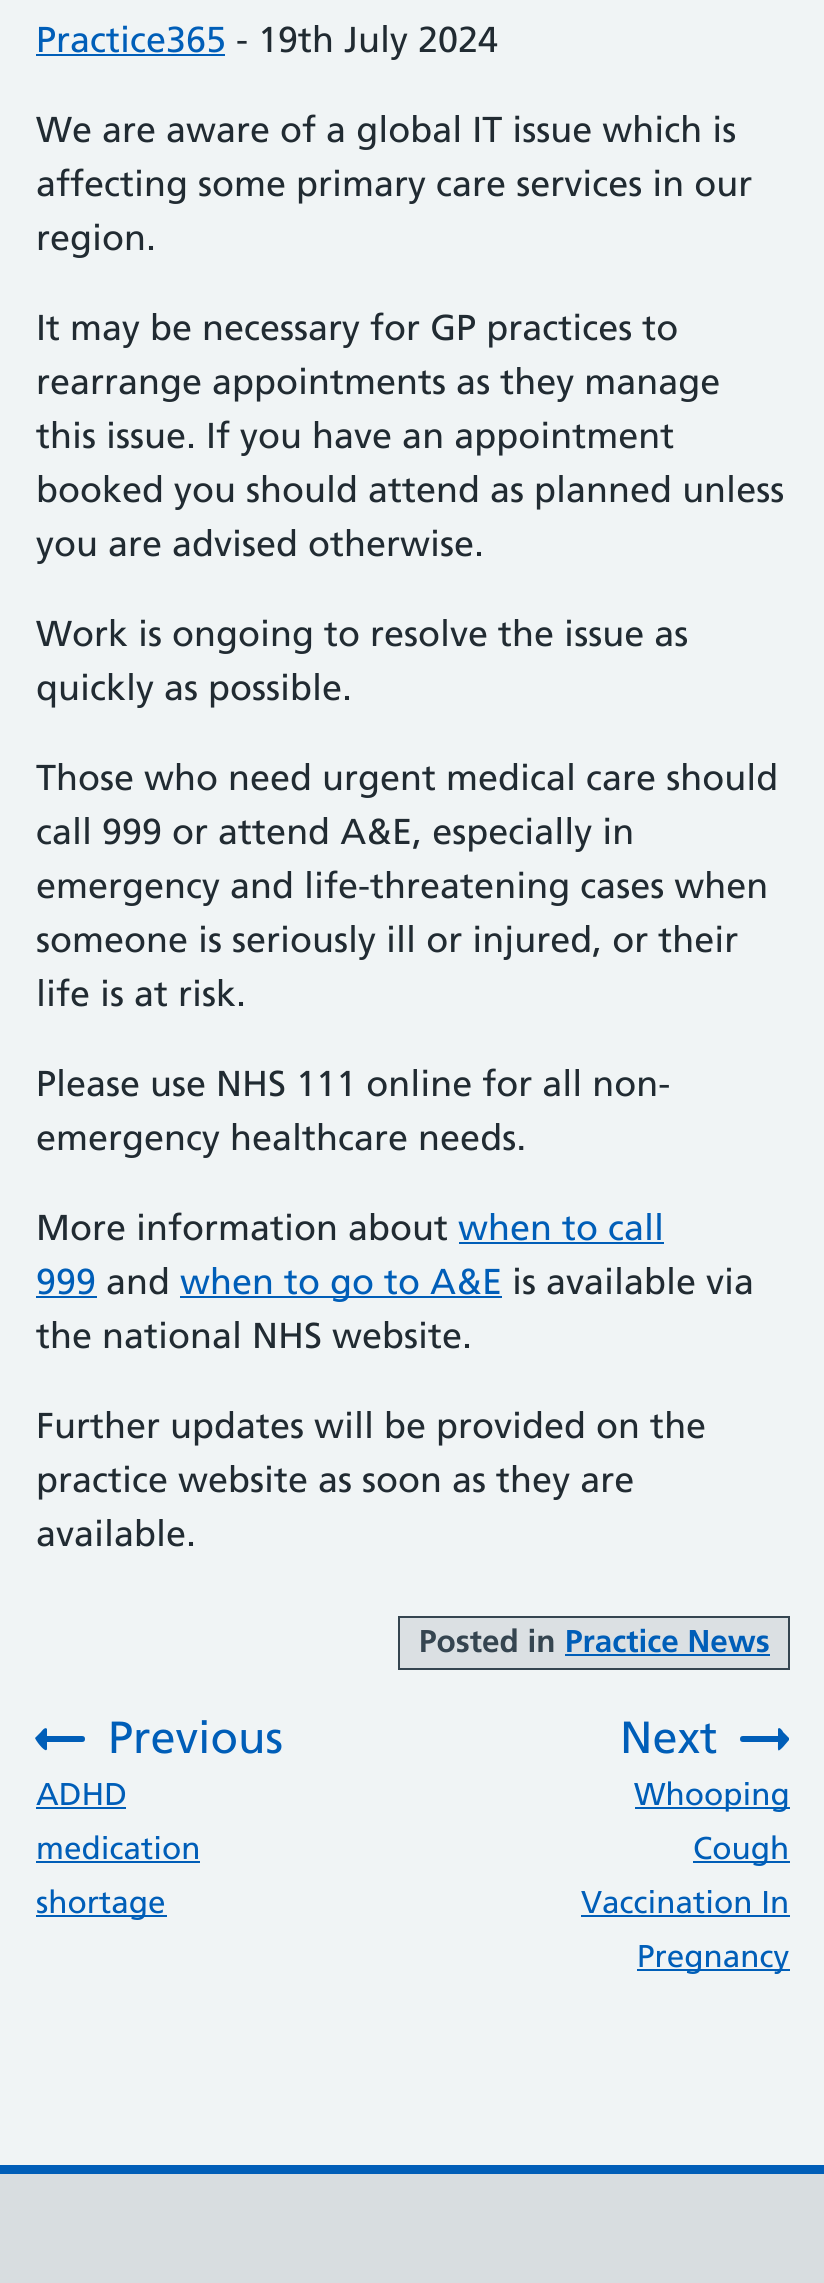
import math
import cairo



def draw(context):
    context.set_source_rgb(240 / 255, 244 / 255, 245 / 255)
    context.paint()
    context.set_source_rgb(0, 94 / 255, 184 / 255)
    context.rectangle(36, 54, 189, 2)
    context.fill()
    context.rectangle(459, 1242, 205, 2)
    context.fill()
    context.rectangle(36, 1296, 61, 2)
    context.fill()
    context.rectangle(180, 1296, 322, 2)
    context.fill()
    context.set_source_rgb(219 / 255, 224 / 255, 227 / 255)
    context.rectangle(399, 1617, 390, 52)
    context.fill_preserve()
    context.set_source_rgb(53 / 255, 69 / 255, 80 / 255)
    context.stroke()
    context.set_source_rgb(0, 94 / 255, 184 / 255)
    context.rectangle(565, 1654, 205, 2)
    context.fill()
    context.new_path()
    context.move_to(36, 1740)
    context.curve_to(37, 1742, 46, 1754, 47, 1749)
    context.line_to(47, 1742)
    context.line_to(82, 1742)
    context.curve_to(84, 1742, 85, 1741, 85, 1739)
    context.curve_to(85, 1737, 84, 1736, 82, 1736)
    context.line_to(47, 1736)
    context.line_to(47, 1729)
    context.curve_to(45, 1726, 41, 1732, 41, 1732)
    context.line_to(35, 1738)
    context.close_path()
    context.fill()
    context.rectangle(36, 1807, 90, 2)
    context.fill()
    context.rectangle(36, 1861, 164, 2)
    context.fill()
    context.rectangle(36, 1915, 131, 2)
    context.fill()
    context.new_path()
    context.move_to(789, 1738)
    context.line_to(783, 1732)
    context.curve_to(783, 1731, 779, 1726, 778, 1729)
    context.line_to(778, 1736)
    context.line_to(743, 1736)
    context.curve_to(741, 1736, 740, 1737, 740, 1739)
    context.curve_to(740, 1741, 741, 1742, 743, 1742)
    context.line_to(778, 1742)
    context.curve_to(778, 1751, 777, 1753, 783, 1747)
    context.line_to(789, 1740)
    context.close_path()
    context.fill()
    context.rectangle(635, 1807, 155, 2)
    context.fill()
    context.rectangle(693, 1861, 97, 2)
    context.fill()
    context.rectangle(581, 1915, 209, 2)
    context.fill()
    context.rectangle(637, 1969, 153, 2)
    context.fill()
    context.set_source_rgb(216 / 255, 221 / 255, 224 / 255)
    context.rectangle(0, 2174, 824, 109)
    context.fill()
    context.set_source_rgb(0, 94 / 255, 184 / 255)
    context.rectangle(0, 2165, 824, 9)
    context.fill()
    context.select_font_face("Frutiger")
    context.set_font_size(36)
    context.move_to(36, 52)
    context.show_text("Practice365")
    context.set_source_rgb(33 / 255, 43 / 255, 50 / 255)
    context.move_to(236, 52)
    context.show_text("- 19th July 2024")
    context.move_to(36, 142)
    context.show_text("We are aware of a global IT issue which is")
    context.move_to(36, 196)
    context.show_text("affecting some primary care services in our")
    context.move_to(36, 250)
    context.show_text("region.")
    context.move_to(36, 340)
    context.show_text("It may be necessary for GP practices to")
    context.move_to(36, 394)
    context.show_text("rearrange appointments as they manage")
    context.move_to(36, 448)
    context.show_text("this issue. If you have an appointment")
    context.move_to(36, 502)
    context.show_text("booked you should attend as planned unless")
    context.move_to(36, 556)
    context.show_text("you are advised otherwise.")
    context.move_to(36, 646)
    context.show_text("Work is ongoing to resolve the issue as")
    context.move_to(36, 700)
    context.show_text("quickly as possible.")
    context.move_to(36, 790)
    context.show_text("Those who need urgent medical care should")
    context.move_to(36, 844)
    context.show_text("call 999 or attend A&E, especially in")
    context.move_to(36, 898)
    context.show_text("emergency and life-threatening cases when")
    context.move_to(36, 952)
    context.show_text("someone is seriously ill or injured, or their")
    context.move_to(36, 1006)
    context.show_text("life is at risk.")
    context.move_to(36, 1096)
    context.show_text("Please use NHS 111 online for all non-")
    context.move_to(36, 1150)
    context.show_text("emergency healthcare needs.")
    context.move_to(36, 1240)
    context.show_text("More information about")
    context.set_source_rgb(0, 94 / 255, 184 / 255)
    context.move_to(458, 1240)
    context.show_text("when to call")
    context.move_to(36, 1294)
    context.show_text("999")
    context.set_source_rgb(33 / 255, 43 / 255, 50 / 255)
    context.move_to(106, 1294)
    context.show_text("and")
    context.set_source_rgb(0, 94 / 255, 184 / 255)
    context.move_to(180, 1294)
    context.show_text("when to go to A&E")
    context.set_source_rgb(33 / 255, 43 / 255, 50 / 255)
    context.move_to(512, 1294)
    context.show_text("is available via")
    context.move_to(36, 1348)
    context.show_text("the national NHS website.")
    context.move_to(36, 1438)
    context.show_text("Further updates will be provided on the")
    context.move_to(36, 1492)
    context.show_text("practice website as soon as they are")
    context.move_to(36, 1546)
    context.show_text("available.")
    context.select_font_face("Frutiger", cairo.FontSlant.NORMAL, cairo.FontWeight.BOLD)
    context.set_font_size(31.5)
    context.set_source_rgb(53 / 255, 69 / 255, 80 / 255)
    context.move_to(419, 1652)
    context.show_text("Posted in")
    context.set_source_rgb(0, 94 / 255, 184 / 255)
    context.move_to(565, 1652)
    context.show_text("Practice News")
    context.select_font_face("Frutiger")
    context.set_font_size(45)
    context.move_to(108, 1753)
    context.show_text("Previous")
    context.set_font_size(31.5)
    context.move_to(36, 1805)
    context.show_text("ADHD")
    context.move_to(36, 1859)
    context.show_text("medication")
    context.move_to(36, 1913)
    context.show_text("shortage")
    context.set_font_size(45)
    context.move_to(620, 1753)
    context.show_text("Next")
    context.set_font_size(31.5)
    context.move_to(634, 1805)
    context.show_text("Whooping")
    context.move_to(693, 1859)
    context.show_text("Cough")
    context.move_to(581, 1913)
    context.show_text("Vaccination In")
    context.move_to(637, 1967)
    context.show_text("Pregnancy")


surface = cairo.ImageSurface(cairo.Format.RGB24, 824, 2283)
context = cairo.Context(surface)
options = cairo.FontOptions()
options.set_hint_metrics(cairo.HintMetrics.OFF)
options.set_hint_style(cairo.HintStyle.NONE)
context.set_font_options(options)
context.set_miter_limit(4)
draw(context)
surface.write_to_png("out.png")
